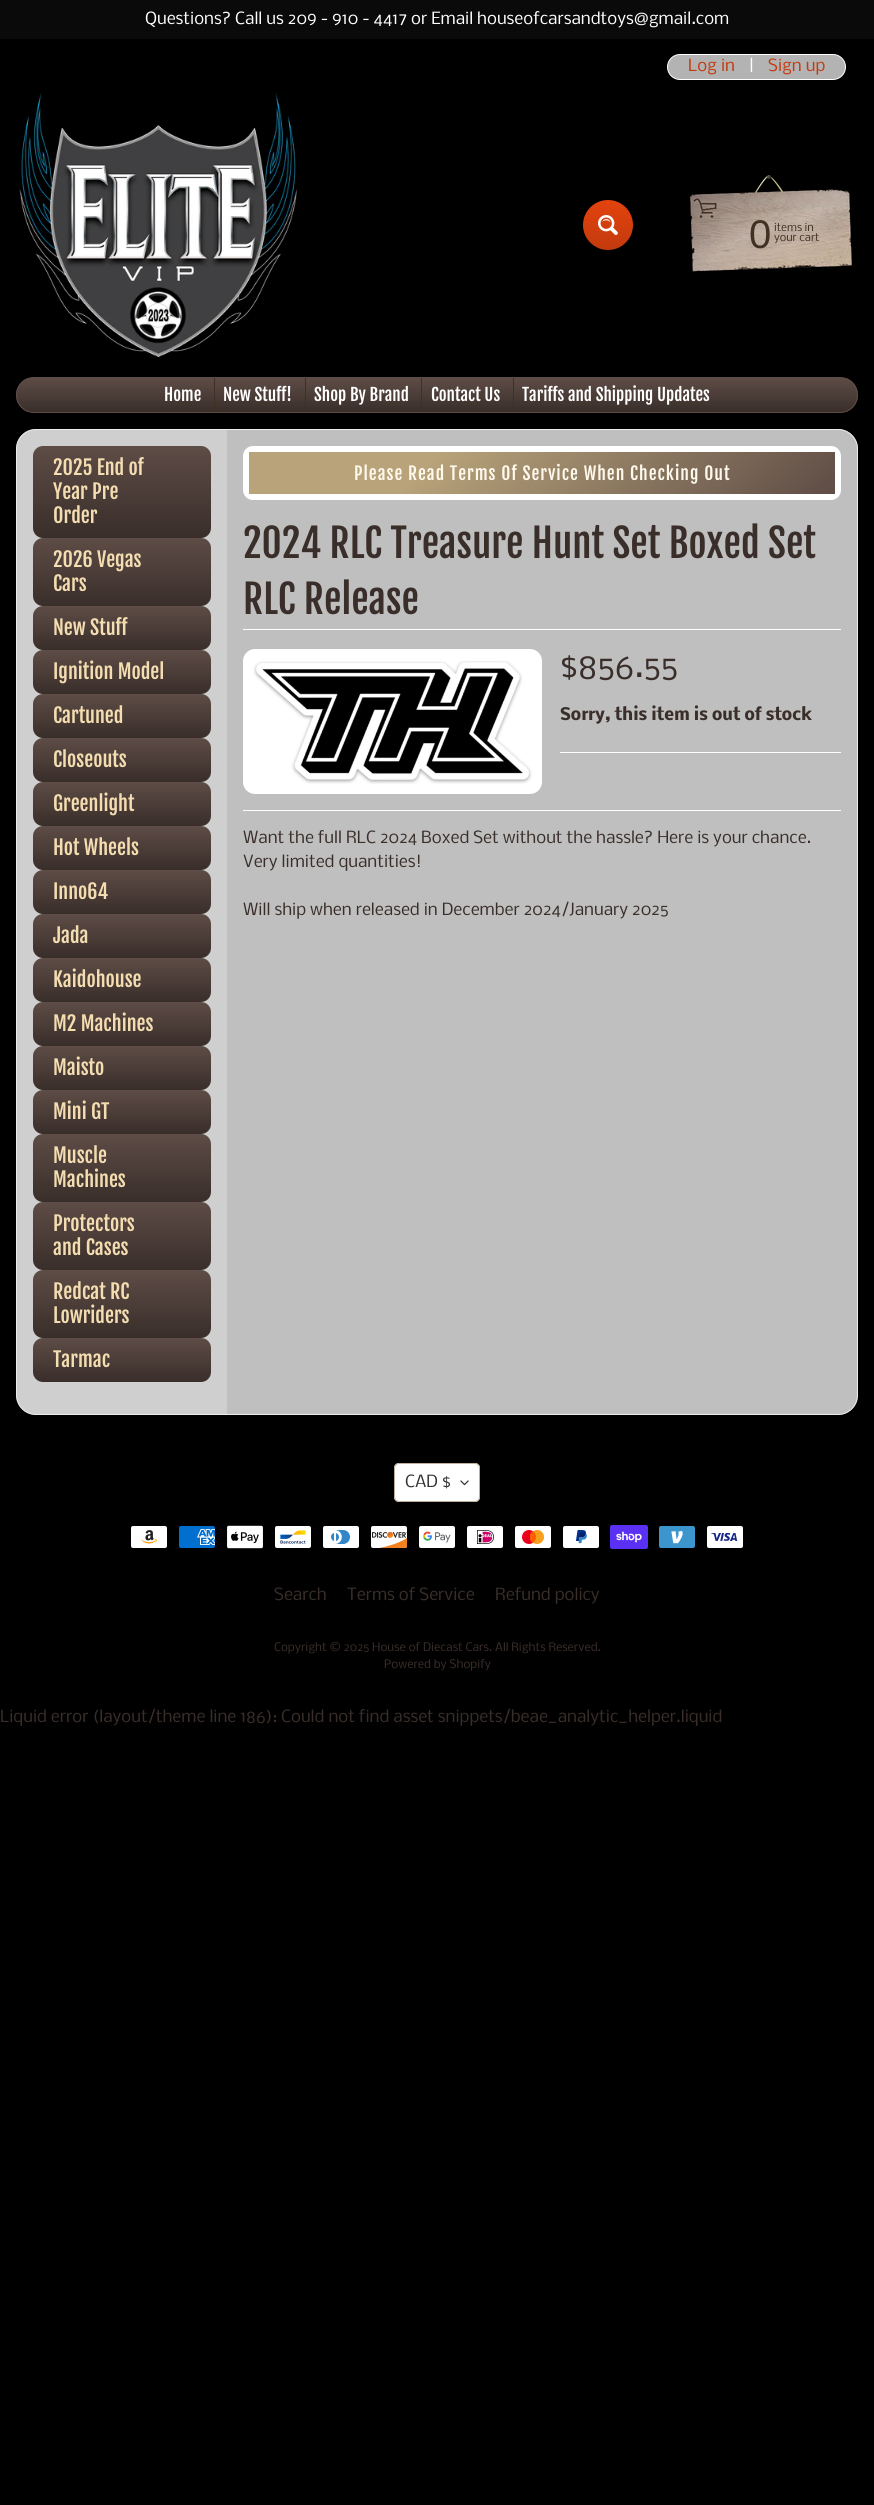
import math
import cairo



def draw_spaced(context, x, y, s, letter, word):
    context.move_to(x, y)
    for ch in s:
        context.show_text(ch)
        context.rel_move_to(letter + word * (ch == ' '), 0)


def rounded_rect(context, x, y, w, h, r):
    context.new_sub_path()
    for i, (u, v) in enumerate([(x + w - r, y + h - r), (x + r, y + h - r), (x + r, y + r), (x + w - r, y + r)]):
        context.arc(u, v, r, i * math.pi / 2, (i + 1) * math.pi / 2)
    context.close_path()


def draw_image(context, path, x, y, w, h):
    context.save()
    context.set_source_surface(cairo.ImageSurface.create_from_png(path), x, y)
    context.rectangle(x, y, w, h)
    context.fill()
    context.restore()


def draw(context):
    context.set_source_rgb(0, 0, 0)
    context.paint()
    context.set_source_rgb(10 / 255, 10 / 255, 10 / 255)
    context.rectangle(0, 0, 874, 39)
    context.fill()
    draw_image(context, "images/1.png", 19, 93, 279, 265)
    context.set_source_rgb(179 / 255, 179 / 255, 179 / 255)
    rounded_rect(context, 667.5, 54.5, 178, 25, 12.5)
    context.fill_preserve()
    context.set_source_rgb(1, 1, 1)
    context.set_line_width(1)
    context.stroke()
    gradient = cairo.LinearGradient(608, 200, 608, 250)
    gradient.add_color_stop_rgba(0, 227 / 255, 67 / 255, 13 / 255, 1)
    gradient.add_color_stop_rgba(1, 195 / 255, 58 / 255, 14 / 255, 1)
    context.set_source(gradient)
    context.arc(608, 225, 25, 0, 2 * math.pi)
    context.fill()
    draw_image(context, "images/2.png", 598, 215, 20, 20)
    draw_image(context, "images/3.png", 690, 175, 162, 98)
    context.save()
    rounded_rect(context, 16, 377, 842, 36, 18)
    context.clip()
    gradient = cairo.LinearGradient(437, 378, 437, 412)
    gradient.add_color_stop_rgba(0, 94 / 255, 76 / 255, 70 / 255, 1)
    gradient.add_color_stop_rgba(1, 57 / 255, 46 / 255, 42 / 255, 1)
    context.set_source(gradient)
    context.rectangle(16, 378, 842, 34)
    context.fill()
    context.restore()
    rounded_rect(context, 16.5, 377.5, 841, 35, 17.5)
    context.set_source_rgb(94 / 255, 76 / 255, 70 / 255)
    context.stroke()
    context.set_source_rgb(65 / 255, 49 / 255, 36 / 255)
    context.rectangle(214, 378, 1, 34)
    context.fill()
    context.rectangle(305, 378, 1, 34)
    context.fill()
    context.rectangle(421, 378, 1, 34)
    context.fill()
    context.rectangle(513, 378, 1, 34)
    context.fill()
    context.set_source_rgb(191 / 255, 191 / 255, 191 / 255)
    rounded_rect(context, 16, 429, 842, 986, 20)
    context.fill()
    rounded_rect(context, 16.5, 429.5, 841, 985, 19.5)
    context.set_source_rgba(1, 1, 1, 0.7)
    context.stroke()
    context.set_source_rgba(1, 1, 1, 0.25)
    context.new_path()
    context.move_to(36, 430)
    context.line_to(227, 430)
    context.line_to(227, 1414)
    context.line_to(36, 1414)
    context.curve_to(25.5, 1414, 17, 1405.5, 17, 1395)
    context.line_to(17, 449)
    context.curve_to(17, 438.5, 25.5, 430, 36, 430)
    context.close_path()
    context.fill()
    gradient = cairo.LinearGradient(122, 446, 122, 538)
    gradient.add_color_stop_rgba(0, 94 / 255, 76 / 255, 70 / 255, 1)
    gradient.add_color_stop_rgba(1, 57 / 255, 46 / 255, 42 / 255, 1)
    context.set_source(gradient)
    rounded_rect(context, 33, 446, 178, 92, 10)
    context.fill()
    gradient = cairo.LinearGradient(122, 538, 122, 606)
    gradient.add_color_stop_rgba(0, 94 / 255, 76 / 255, 70 / 255, 1)
    gradient.add_color_stop_rgba(1, 57 / 255, 46 / 255, 42 / 255, 1)
    context.set_source(gradient)
    rounded_rect(context, 33, 538, 178, 68, 10)
    context.fill()
    gradient = cairo.LinearGradient(122, 606, 122, 650)
    gradient.add_color_stop_rgba(0, 94 / 255, 76 / 255, 70 / 255, 1)
    gradient.add_color_stop_rgba(1, 57 / 255, 46 / 255, 42 / 255, 1)
    context.set_source(gradient)
    rounded_rect(context, 33, 606, 178, 44, 10)
    context.fill()
    gradient = cairo.LinearGradient(122, 650, 122, 694)
    gradient.add_color_stop_rgba(0, 94 / 255, 76 / 255, 70 / 255, 1)
    gradient.add_color_stop_rgba(1, 57 / 255, 46 / 255, 42 / 255, 1)
    context.set_source(gradient)
    rounded_rect(context, 33, 650, 178, 44, 10)
    context.fill()
    gradient = cairo.LinearGradient(122, 694, 122, 738)
    gradient.add_color_stop_rgba(0, 94 / 255, 76 / 255, 70 / 255, 1)
    gradient.add_color_stop_rgba(1, 57 / 255, 46 / 255, 42 / 255, 1)
    context.set_source(gradient)
    rounded_rect(context, 33, 694, 178, 44, 10)
    context.fill()
    gradient = cairo.LinearGradient(122, 738, 122, 782)
    gradient.add_color_stop_rgba(0, 94 / 255, 76 / 255, 70 / 255, 1)
    gradient.add_color_stop_rgba(1, 57 / 255, 46 / 255, 42 / 255, 1)
    context.set_source(gradient)
    rounded_rect(context, 33, 738, 178, 44, 10)
    context.fill()
    gradient = cairo.LinearGradient(122, 782, 122, 826)
    gradient.add_color_stop_rgba(0, 94 / 255, 76 / 255, 70 / 255, 1)
    gradient.add_color_stop_rgba(1, 57 / 255, 46 / 255, 42 / 255, 1)
    context.set_source(gradient)
    rounded_rect(context, 33, 782, 178, 44, 10)
    context.fill()
    gradient = cairo.LinearGradient(122, 826, 122, 870)
    gradient.add_color_stop_rgba(0, 94 / 255, 76 / 255, 70 / 255, 1)
    gradient.add_color_stop_rgba(1, 57 / 255, 46 / 255, 42 / 255, 1)
    context.set_source(gradient)
    rounded_rect(context, 33, 826, 178, 44, 10)
    context.fill()
    gradient = cairo.LinearGradient(122, 870, 122, 914)
    gradient.add_color_stop_rgba(0, 94 / 255, 76 / 255, 70 / 255, 1)
    gradient.add_color_stop_rgba(1, 57 / 255, 46 / 255, 42 / 255, 1)
    context.set_source(gradient)
    rounded_rect(context, 33, 870, 178, 44, 10)
    context.fill()
    gradient = cairo.LinearGradient(122, 914, 122, 958)
    gradient.add_color_stop_rgba(0, 94 / 255, 76 / 255, 70 / 255, 1)
    gradient.add_color_stop_rgba(1, 57 / 255, 46 / 255, 42 / 255, 1)
    context.set_source(gradient)
    rounded_rect(context, 33, 914, 178, 44, 10)
    context.fill()
    gradient = cairo.LinearGradient(122, 958, 122, 1002)
    gradient.add_color_stop_rgba(0, 94 / 255, 76 / 255, 70 / 255, 1)
    gradient.add_color_stop_rgba(1, 57 / 255, 46 / 255, 42 / 255, 1)
    context.set_source(gradient)
    rounded_rect(context, 33, 958, 178, 44, 10)
    context.fill()
    gradient = cairo.LinearGradient(122, 1002, 122, 1046)
    gradient.add_color_stop_rgba(0, 94 / 255, 76 / 255, 70 / 255, 1)
    gradient.add_color_stop_rgba(1, 57 / 255, 46 / 255, 42 / 255, 1)
    context.set_source(gradient)
    rounded_rect(context, 33, 1002, 178, 44, 10)
    context.fill()
    gradient = cairo.LinearGradient(122, 1046, 122, 1090)
    gradient.add_color_stop_rgba(0, 94 / 255, 76 / 255, 70 / 255, 1)
    gradient.add_color_stop_rgba(1, 57 / 255, 46 / 255, 42 / 255, 1)
    context.set_source(gradient)
    rounded_rect(context, 33, 1046, 178, 44, 10)
    context.fill()
    gradient = cairo.LinearGradient(122, 1090, 122, 1134)
    gradient.add_color_stop_rgba(0, 94 / 255, 76 / 255, 70 / 255, 1)
    gradient.add_color_stop_rgba(1, 57 / 255, 46 / 255, 42 / 255, 1)
    context.set_source(gradient)
    rounded_rect(context, 33, 1090, 178, 44, 10)
    context.fill()
    gradient = cairo.LinearGradient(122, 1134, 122, 1202)
    gradient.add_color_stop_rgba(0, 94 / 255, 76 / 255, 70 / 255, 1)
    gradient.add_color_stop_rgba(1, 57 / 255, 46 / 255, 42 / 255, 1)
    context.set_source(gradient)
    rounded_rect(context, 33, 1134, 178, 68, 10)
    context.fill()
    gradient = cairo.LinearGradient(122, 1202, 122, 1270)
    gradient.add_color_stop_rgba(0, 94 / 255, 76 / 255, 70 / 255, 1)
    gradient.add_color_stop_rgba(1, 57 / 255, 46 / 255, 42 / 255, 1)
    context.set_source(gradient)
    rounded_rect(context, 33, 1202, 178, 68, 10)
    context.fill()
    gradient = cairo.LinearGradient(122, 1270, 122, 1338)
    gradient.add_color_stop_rgba(0, 94 / 255, 76 / 255, 70 / 255, 1)
    gradient.add_color_stop_rgba(1, 57 / 255, 46 / 255, 42 / 255, 1)
    context.set_source(gradient)
    rounded_rect(context, 33, 1270, 178, 68, 10)
    context.fill()
    gradient = cairo.LinearGradient(122, 1338, 122, 1382)
    gradient.add_color_stop_rgba(0, 94 / 255, 76 / 255, 70 / 255, 1)
    gradient.add_color_stop_rgba(1, 57 / 255, 46 / 255, 42 / 255, 1)
    context.set_source(gradient)
    rounded_rect(context, 33, 1338, 178, 44, 10)
    context.fill()
    context.set_source_rgb(1, 1, 1)
    rounded_rect(context, 243, 446, 598, 54, 10)
    context.fill()
    gradient = cairo.LinearGradient(385, 316, 699, 630)
    gradient.add_color_stop_rgba(0.3, 184 / 255, 163 / 255, 122 / 255, 1)
    gradient.add_color_stop_rgba(1, 94 / 255, 76 / 255, 70 / 255, 1)
    context.set_source(gradient)
    context.rectangle(249, 452, 586, 42)
    context.fill()
    context.set_source_rgb(1, 1, 1)
    context.rectangle(243, 629, 598, 1)
    context.fill()
    rounded_rect(context, 243, 649, 299, 145, 12)
    context.fill()
    draw_image(context, "images/4.png", 253, 661, 279, 123)
    context.rectangle(560, 752, 281, 1)
    context.fill()
    context.rectangle(243, 810, 598, 1)
    context.fill()
    rounded_rect(context, 394, 1463, 86, 39, 5)
    context.fill()
    draw_image(context, "images/5.png", 460, 1480, 9, 6)
    rounded_rect(context, 394.5, 1463.5, 85, 38, 4.5)
    context.set_source_rgb(189 / 255, 175 / 255, 155 / 255)
    context.stroke()
    draw_image(context, "images/6.png", 131, 1526, 36, 22)
    draw_image(context, "images/7.png", 179, 1526, 36, 22)
    draw_image(context, "images/8.png", 227, 1525, 36, 24)
    draw_image(context, "images/9.png", 275, 1526, 36, 22)
    draw_image(context, "images/10.png", 323, 1526, 36, 22)
    draw_image(context, "images/11.png", 371, 1526, 37, 22)
    draw_image(context, "images/12.png", 419, 1526, 36, 22)
    draw_image(context, "images/13.png", 467, 1526, 36, 22)
    draw_image(context, "images/14.png", 515, 1526, 36, 22)
    draw_image(context, "images/15.png", 563, 1526, 36, 22)
    draw_image(context, "images/16.png", 610, 1525, 38, 24)
    draw_image(context, "images/17.png", 659, 1526, 36, 22)
    draw_image(context, "images/18.png", 707, 1526, 36, 22)
    context.select_font_face("Nobile")
    context.set_font_size(16)
    context.set_source_rgb(1, 1, 1)
    context.move_to(145, 24)
    context.show_text("Questions? Call us 209 - 910 - 4417 or Email houseofcarsandtoys@gmail.com")
    context.set_source_rgb(195 / 255, 58 / 255, 14 / 255)
    context.move_to(688, 71)
    context.show_text("Log in")
    context.set_source_rgb(1, 1, 1)
    context.move_to(749, 71)
    context.show_text("|")
    context.set_source_rgb(195 / 255, 58 / 255, 14 / 255)
    context.move_to(768, 71)
    context.show_text("Sign up")
    context.select_font_face("Liberation Sans")
    context.set_font_size(40)
    context.set_source_rgb(64 / 255, 49 / 255, 37 / 255)
    context.move_to(749, 248)
    context.show_text("0")
    context.select_font_face("Nobile")
    context.set_font_size(10.5)
    context.move_to(774, 231)
    context.show_text("items in")
    context.move_to(774, 241)
    context.show_text("your cart")
    context.select_font_face("Fjalla One")
    context.set_font_size(17)
    context.set_source_rgb(1, 1, 1)
    context.move_to(164, 401)
    context.show_text("Home")
    context.move_to(223, 401)
    context.show_text("New Stuff!")
    context.move_to(314, 401)
    context.show_text("Shop By Brand")
    context.move_to(431, 401)
    context.show_text("Contact Us")
    context.move_to(522, 401)
    context.show_text("Tariffs and Shipping Updates")
    context.set_font_size(20)
    context.set_source_rgb(244 / 255, 221 / 255, 177 / 255)
    context.move_to(53, 475)
    context.show_text("2025 End of")
    context.move_to(53, 499)
    context.show_text("Year Pre")
    context.move_to(53, 523)
    context.show_text("Order")
    context.move_to(53, 567)
    context.show_text("2026 Vegas")
    context.move_to(53, 591)
    context.show_text("Cars")
    context.move_to(53, 635)
    context.show_text("New Stuff")
    context.move_to(53, 679)
    context.show_text("Ignition Model")
    context.move_to(53, 723)
    context.show_text("Cartuned")
    context.move_to(53, 767)
    context.show_text("Closeouts")
    context.move_to(53, 811)
    context.show_text("Greenlight")
    context.move_to(53, 855)
    context.show_text("Hot Wheels")
    context.move_to(53, 899)
    context.show_text("Inno64")
    context.move_to(53, 943)
    context.show_text("Jada")
    context.move_to(53, 987)
    context.show_text("Kaidohouse")
    context.move_to(53, 1031)
    context.show_text("M2 Machines")
    context.move_to(53, 1075)
    context.show_text("Maisto")
    context.move_to(53, 1119)
    context.show_text("Mini GT")
    context.move_to(53, 1163)
    context.show_text("Muscle")
    context.move_to(53, 1187)
    context.show_text("Machines")
    context.move_to(53, 1231)
    context.show_text("Protectors")
    context.move_to(53, 1255)
    context.show_text("and Cases")
    context.move_to(53, 1299)
    context.show_text("Redcat RC")
    context.move_to(53, 1323)
    context.show_text("Lowriders")
    context.move_to(53, 1367)
    context.show_text("Tarmac")
    context.set_font_size(17.5)
    context.set_source_rgb(1, 249 / 255, 237 / 255)
    draw_spaced(context, 354, 480, "Please Read Terms Of Service When Checking Out", 1, 0)
    context.set_font_size(39)
    context.set_source_rgb(57 / 255, 46 / 255, 42 / 255)
    context.move_to(243, 558)
    context.show_text("2024 RLC Treasure Hunt Set Boxed Set")
    context.move_to(243, 614)
    context.show_text("RLC Release")
    context.select_font_face("Nobile")
    context.set_font_size(32)
    context.move_to(560, 677)
    context.show_text("$856.55")
    context.select_font_face("Nobile", cairo.FontSlant.NORMAL, cairo.FontWeight.BOLD)
    context.set_font_size(16)
    context.move_to(560, 720)
    context.show_text("Sorry, this item is out of stock")
    context.select_font_face("Nobile")
    context.move_to(243, 843)
    context.show_text("Want the full RLC 2024 Boxed Set without the hassle? Here is your chance.")
    context.move_to(243, 867)
    context.show_text("Very limited quantities!")
    context.move_to(243, 915)
    context.show_text("Will ship when released in December 2024/January 2025")
    context.set_source_rgb(51 / 255, 51 / 255, 51 / 255)
    context.move_to(405, 1487)
    context.show_text("CAD $")
    context.set_source_rgb(57 / 255, 46 / 255, 42 / 255)
    context.move_to(274, 1600)
    context.show_text("Search")
    context.move_to(347, 1600)
    context.show_text("Terms of Service")
    context.move_to(495, 1600)
    context.show_text("Refund policy")
    context.set_font_size(11.2)
    context.move_to(274, 1651)
    context.show_text("Copyright © 2025 House of Diecast Cars. All Rights Reserved.")
    context.move_to(384, 1668)
    context.show_text("Powered by Shopify")
    context.set_font_size(16)
    context.move_to(0, 1722)
    context.show_text("Liquid error (layout/theme line 186): Could not find asset snippets/beae_analytic_helper.liquid")


surface = cairo.ImageSurface(cairo.Format.RGB24, 874, 2505)
context = cairo.Context(surface)
options = cairo.FontOptions()
options.set_hint_metrics(cairo.HintMetrics.OFF)
options.set_hint_style(cairo.HintStyle.NONE)
context.set_font_options(options)
context.set_miter_limit(4)
draw(context)
surface.write_to_png("out.png")
